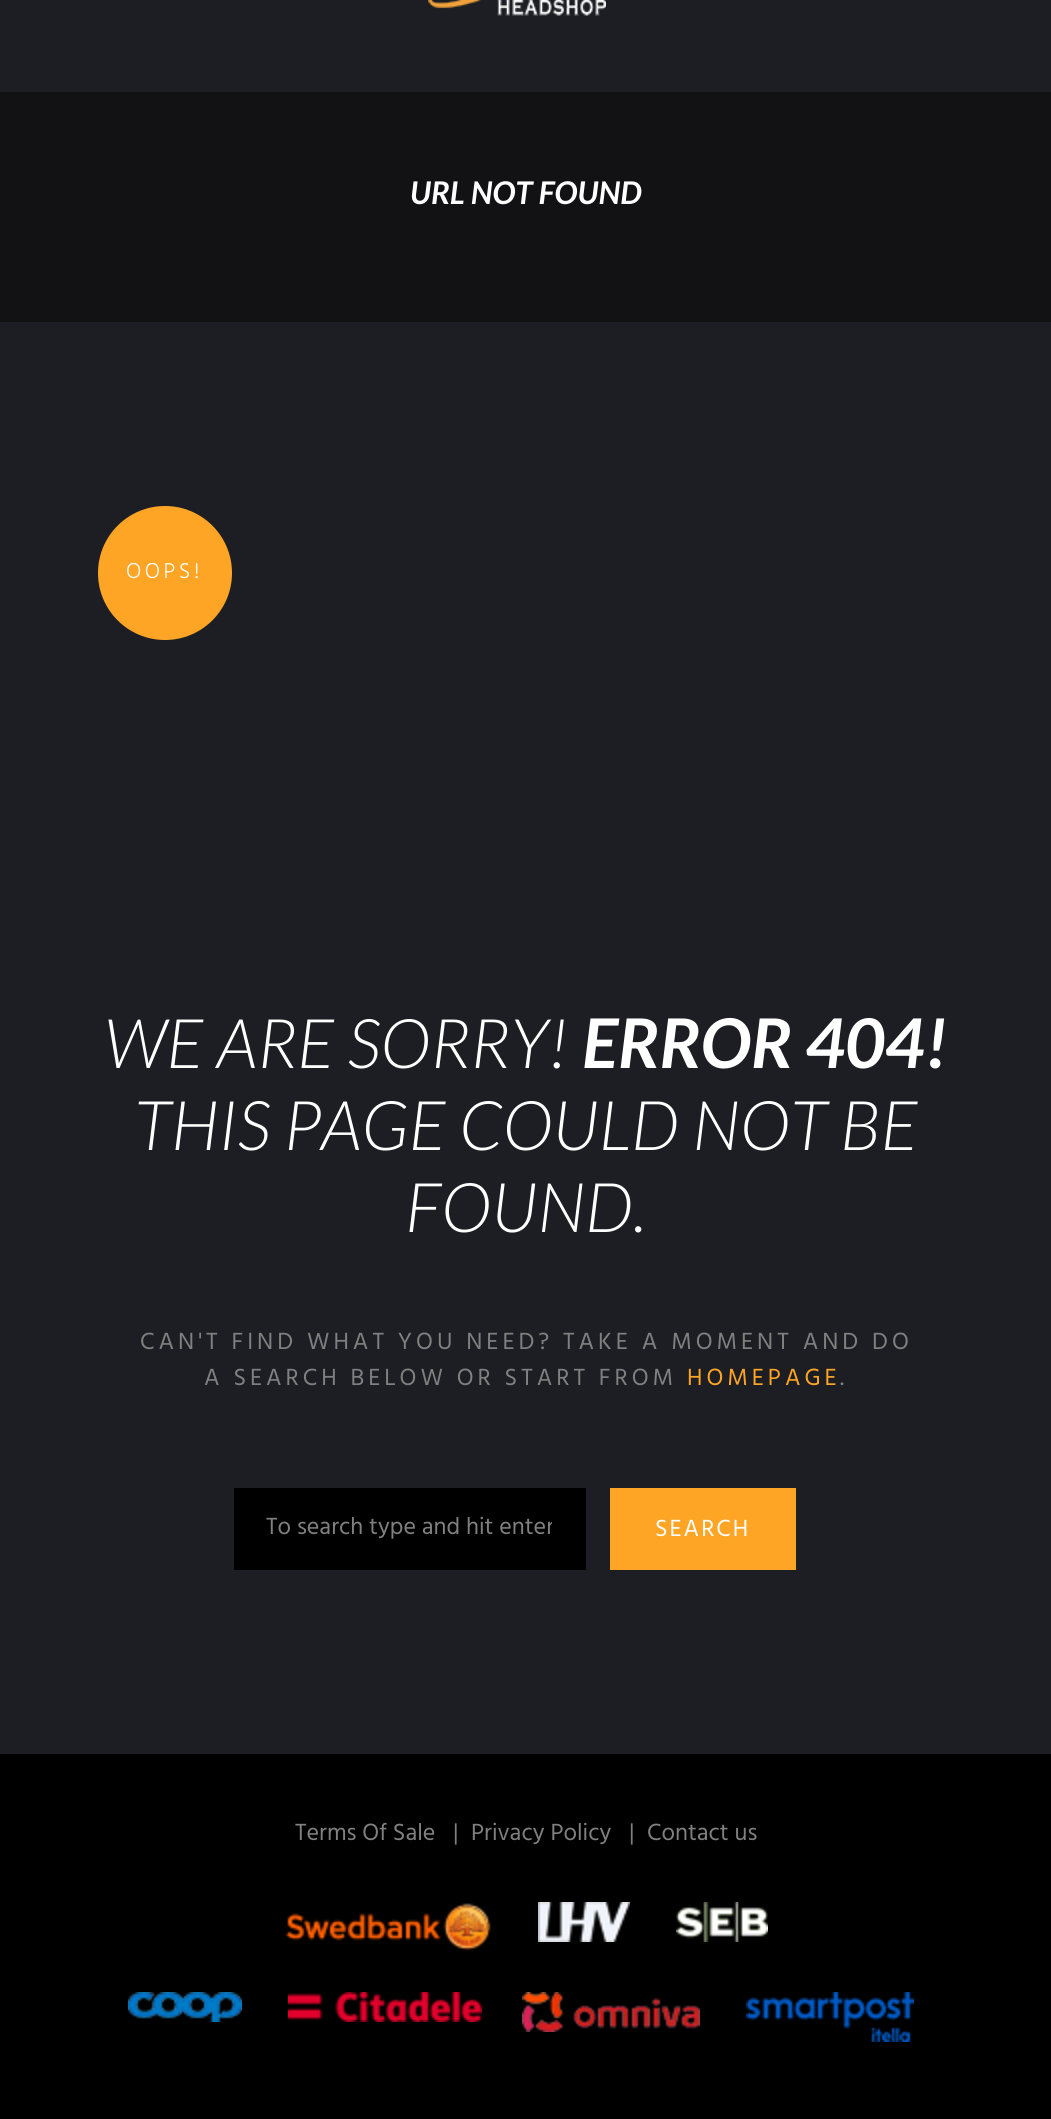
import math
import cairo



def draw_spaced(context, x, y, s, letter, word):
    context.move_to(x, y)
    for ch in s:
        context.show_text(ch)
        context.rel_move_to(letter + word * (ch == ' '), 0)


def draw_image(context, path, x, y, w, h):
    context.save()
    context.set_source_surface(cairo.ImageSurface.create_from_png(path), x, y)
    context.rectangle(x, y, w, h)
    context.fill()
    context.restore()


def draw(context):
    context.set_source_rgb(29 / 255, 30 / 255, 35 / 255)
    context.paint()
    draw_image(context, "images/1.png", 428, 0, 178, 16)
    context.set_source_rgb(18 / 255, 18 / 255, 21 / 255)
    context.rectangle(0, 92, 1051, 230)
    context.fill()
    context.set_source_rgb(254 / 255, 165 / 255, 38 / 255)
    context.arc(165, 573, 67, 0, 2 * math.pi)
    context.fill()
    context.set_source_rgb(0, 0, 0)
    context.rectangle(234, 1488, 352, 82)
    context.fill()
    context.set_source_rgb(254 / 255, 165 / 255, 38 / 255)
    context.rectangle(610, 1488, 186, 82)
    context.fill()
    context.set_source_rgb(0, 0, 0)
    context.rectangle(0, 1754, 1051, 365)
    context.fill()
    draw_image(context, "images/2.png", 285, 1903, 206, 48)
    draw_image(context, "images/3.png", 538, 1902, 92, 40)
    draw_image(context, "images/4.png", 676, 1902, 92, 40)
    draw_image(context, "images/5.png", 128, 1992, 114, 30)
    draw_image(context, "images/6.png", 288, 1992, 194, 30)
    draw_image(context, "images/7.png", 522, 1992, 178, 40)
    draw_image(context, "images/8.png", 746, 1992, 168, 50)
    context.select_font_face("Lato", cairo.FontSlant.ITALIC, cairo.FontWeight.BOLD)
    context.set_font_size(31.25)
    context.set_source_rgb(1, 1, 1)
    context.move_to(410, 204)
    context.show_text("URL NOT FOUND")
    context.select_font_face("Hind Light")
    context.set_font_size(22)
    draw_spaced(context, 126, 578, "OOPS!", 3.5, 0)
    context.select_font_face("Lato Light", cairo.FontSlant.ITALIC)
    context.set_font_size(68.5)
    context.move_to(104, 1068)
    context.show_text("WE ARE SORRY!")
    context.select_font_face("Lato", cairo.FontSlant.ITALIC, cairo.FontWeight.BOLD)
    context.move_to(582, 1068)
    context.show_text("ERROR 404!")
    context.select_font_face("Lato Light", cairo.FontSlant.ITALIC)
    context.move_to(134, 1150)
    context.show_text("THIS PAGE COULD NOT BE")
    context.move_to(405, 1232)
    context.show_text("FOUND.")
    context.select_font_face("Hind")
    context.set_font_size(24)
    context.set_source_rgb(128 / 255, 128 / 255, 128 / 255)
    draw_spaced(context, 140, 1349, "CAN'T FIND WHAT YOU NEED? TAKE A MOMENT AND DO", 4, 0)
    draw_spaced(context, 204, 1385, "A SEARCH BELOW OR START FROM", 4, 0)
    context.set_source_rgb(254 / 255, 165 / 255, 38 / 255)
    draw_spaced(context, 687, 1385, "HOMEPAGE", 4, 0)
    context.set_source_rgb(128 / 255, 128 / 255, 128 / 255)
    draw_spaced(context, 840, 1385, ".", 4, 0)
    context.save()
    context.rectangle(266, 1508, 286, 40)
    context.clip()
    context.move_to(266, 1534)
    context.show_text("To search type and hit enter")
    context.restore()
    context.set_source_rgb(1, 1, 1)
    draw_spaced(context, 655, 1536, "SEARCH", 2, 0)
    context.set_source_rgb(128 / 255, 128 / 255, 128 / 255)
    context.move_to(295, 1840)
    context.show_text("Terms Of Sale")
    context.move_to(453, 1840)
    context.show_text("|")
    context.move_to(471, 1840)
    context.show_text("Privacy Policy")
    context.move_to(629, 1840)
    context.show_text("|")
    context.move_to(647, 1840)
    context.show_text("Contact us")


surface = cairo.ImageSurface(cairo.Format.RGB24, 1051, 2119)
context = cairo.Context(surface)
options = cairo.FontOptions()
options.set_hint_metrics(cairo.HintMetrics.OFF)
options.set_hint_style(cairo.HintStyle.NONE)
context.set_font_options(options)
context.set_miter_limit(4)
draw(context)
surface.write_to_png("out.png")
